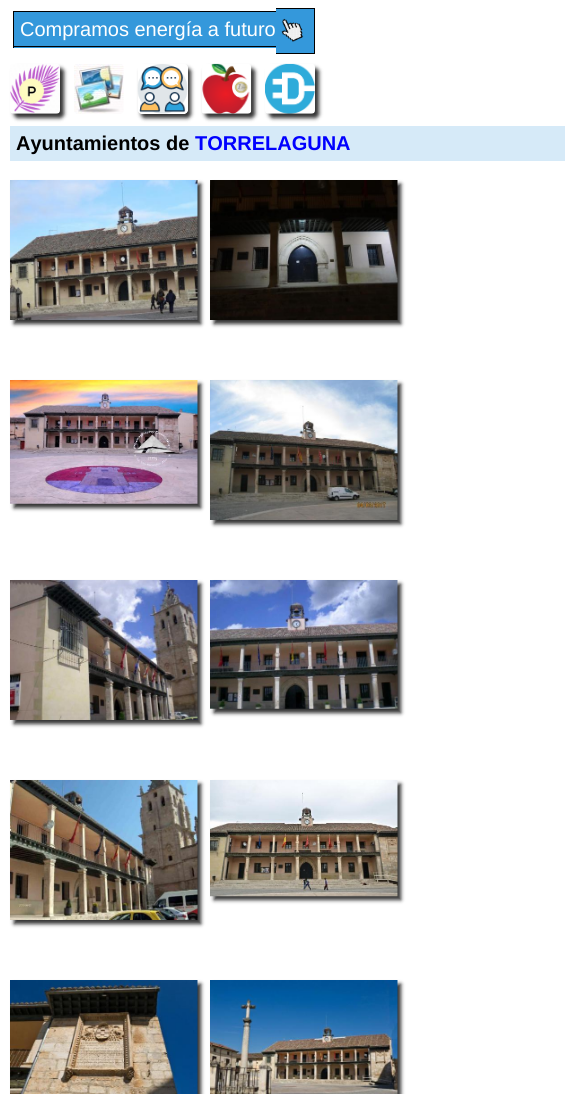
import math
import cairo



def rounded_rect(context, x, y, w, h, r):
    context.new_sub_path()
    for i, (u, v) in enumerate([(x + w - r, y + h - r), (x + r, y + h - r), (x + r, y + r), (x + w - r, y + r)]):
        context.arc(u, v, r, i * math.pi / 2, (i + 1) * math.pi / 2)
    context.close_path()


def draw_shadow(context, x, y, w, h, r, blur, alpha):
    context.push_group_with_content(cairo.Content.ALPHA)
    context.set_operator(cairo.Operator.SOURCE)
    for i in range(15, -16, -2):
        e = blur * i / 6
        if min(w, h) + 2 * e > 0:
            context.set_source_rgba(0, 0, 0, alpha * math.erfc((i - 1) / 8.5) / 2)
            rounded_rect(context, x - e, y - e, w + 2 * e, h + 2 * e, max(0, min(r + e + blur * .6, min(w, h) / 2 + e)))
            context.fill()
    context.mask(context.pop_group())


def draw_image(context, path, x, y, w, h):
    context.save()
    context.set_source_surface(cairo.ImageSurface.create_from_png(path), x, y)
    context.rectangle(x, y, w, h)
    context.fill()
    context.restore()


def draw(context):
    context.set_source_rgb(1, 1, 1)
    context.paint()
    context.set_source_rgb(52 / 255, 152 / 255, 219 / 255)
    context.rectangle(14, 12, 262, 36)
    context.fill()
    context.set_source_rgb(0, 0, 0)
    context.rectangle(13, 11, 263, 1)
    context.fill()
    context.rectangle(13, 46, 263, 1)
    context.fill()
    context.rectangle(13, 11, 1, 37)
    context.fill()
    context.set_source_rgb(52 / 255, 152 / 255, 219 / 255)
    context.rectangle(276, 9, 38, 44)
    context.fill()
    context.set_source_rgb(0, 0, 0)
    context.rectangle(276, 8, 39, 1)
    context.fill()
    context.rectangle(314, 8, 1, 46)
    context.fill()
    context.rectangle(276, 53, 39, 1)
    context.fill()
    draw_image(context, "images/1.png", 281, 18, 23, 24)
    context.set_source_rgb(51 / 255, 51 / 255, 51 / 255)
    draw_shadow(context, 14, 68, 50, 50, 4, 2, 1)
    context.save()
    context.set_fill_rule(cairo.FillRule.EVEN_ODD)
    context.new_path()
    context.move_to(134, 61)
    context.line_to(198, 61)
    context.line_to(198, 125)
    context.line_to(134, 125)
    context.close_path()
    context.move_to(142, 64)
    context.line_to(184, 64)
    context.curve_to(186, 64, 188, 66, 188, 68)
    context.line_to(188, 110)
    context.curve_to(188, 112, 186, 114, 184, 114)
    context.line_to(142, 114)
    context.curve_to(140, 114, 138, 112, 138, 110)
    context.line_to(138, 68)
    context.curve_to(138, 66, 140, 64, 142, 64)
    context.close_path()
    context.clip()
    draw_shadow(context, 141, 68, 50, 50, 4, 2, 1)
    context.restore()
    draw_shadow(context, 205, 68, 50, 50, 4, 2, 1)
    draw_shadow(context, 269, 68, 50, 50, 4, 2, 1)
    draw_image(context, "images/2.png", 10, 64, 50, 50)
    draw_image(context, "images/3.png", 74, 64, 50, 50)
    draw_image(context, "images/4.png", 137, 64, 51, 50)
    draw_image(context, "images/5.png", 202, 63, 50, 51)
    draw_image(context, "images/6.png", 265, 63, 50, 51)
    context.set_source_rgb(214 / 255, 234 / 255, 248 / 255)
    context.rectangle(10, 126, 555, 35)
    context.fill()
    context.set_source_rgb(51 / 255, 51 / 255, 51 / 255)
    draw_shadow(context, 14, 184, 187, 140, 0, 2, 1)
    draw_image(context, "images/7.png", 10, 180, 188, 140)
    draw_shadow(context, 214, 184, 187, 140, 0, 2, 1)
    draw_image(context, "images/8.png", 210, 180, 188, 140)
    draw_shadow(context, 14, 384, 187, 124, 0, 2, 1)
    draw_image(context, "images/9.png", 10, 380, 188, 124)
    draw_shadow(context, 214, 384, 187, 140, 0, 2, 1)
    draw_image(context, "images/10.png", 210, 380, 188, 140)
    draw_shadow(context, 14, 584, 187, 140, 0, 2, 1)
    draw_image(context, "images/11.png", 10, 580, 188, 140)
    draw_shadow(context, 214, 584, 187, 129, 0, 2, 1)
    draw_image(context, "images/12.png", 210, 580, 188, 129)
    draw_shadow(context, 14, 784, 187, 140, 0, 2, 1)
    draw_image(context, "images/13.png", 10, 780, 188, 140)
    draw_shadow(context, 214, 784, 187, 116, 0, 2, 1)
    draw_image(context, "images/14.png", 210, 780, 188, 117)
    draw_shadow(context, 14, 984, 187, 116, 0, 2, 1)
    draw_image(context, "images/15.png", 10, 980, 188, 114)
    draw_shadow(context, 214, 984, 187, 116, 0, 2, 1)
    draw_image(context, "images/16.png", 210, 980, 188, 114)
    context.select_font_face("Liberation Sans")
    context.set_font_size(20)
    context.set_source_rgb(1, 1, 1)
    context.move_to(20, 36)
    context.show_text("Compramos energía a futuro")
    context.select_font_face("Liberation Sans", cairo.FontSlant.NORMAL, cairo.FontWeight.BOLD)
    context.set_source_rgb(0, 0, 0)
    context.move_to(16, 150)
    context.show_text("Ayuntamientos de")
    context.set_source_rgb(0, 0, 1)
    context.move_to(195, 150)
    context.show_text("TORRELAGUNA")


surface = cairo.ImageSurface(cairo.Format.RGB24, 574, 1094)
context = cairo.Context(surface)
options = cairo.FontOptions()
options.set_hint_metrics(cairo.HintMetrics.OFF)
options.set_hint_style(cairo.HintStyle.NONE)
context.set_font_options(options)
context.set_miter_limit(4)
draw(context)
surface.write_to_png("out.png")
